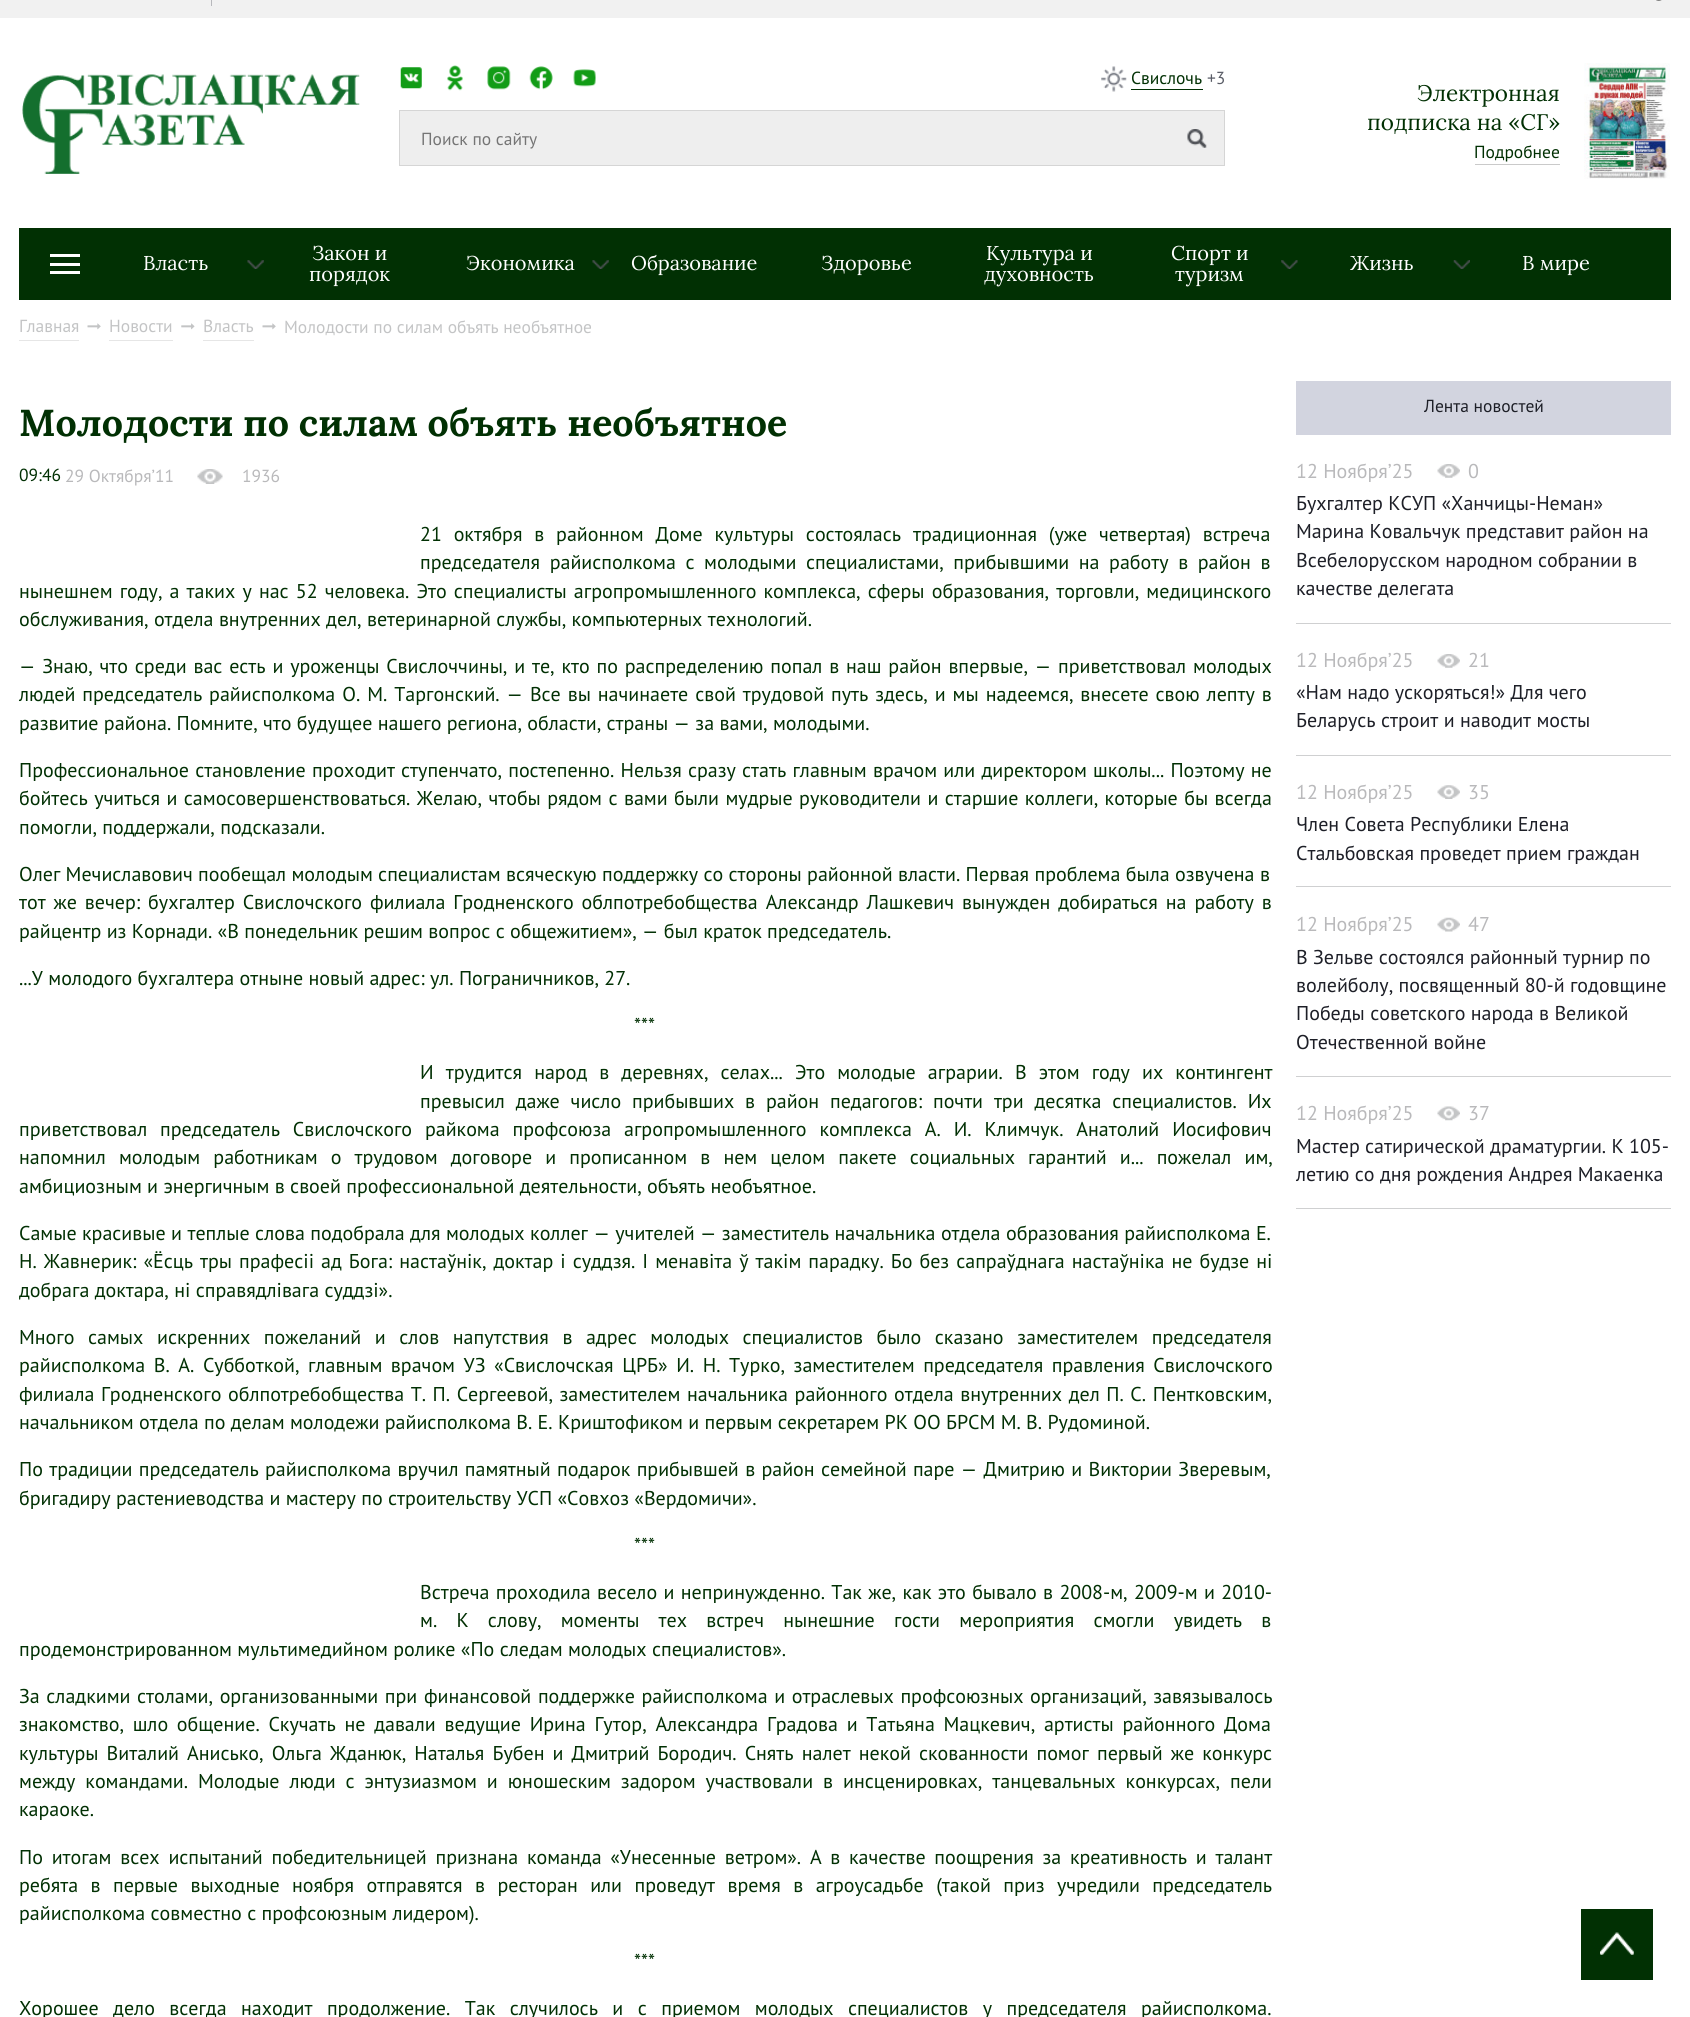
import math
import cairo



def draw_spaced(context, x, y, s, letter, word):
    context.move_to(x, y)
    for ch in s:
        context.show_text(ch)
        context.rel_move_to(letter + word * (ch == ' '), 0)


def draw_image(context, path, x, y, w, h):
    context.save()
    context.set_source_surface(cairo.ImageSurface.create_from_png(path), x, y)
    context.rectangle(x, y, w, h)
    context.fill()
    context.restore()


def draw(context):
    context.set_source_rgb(1, 1, 1)
    context.paint()
    context.set_source_rgb(241 / 255, 241 / 255, 241 / 255)
    context.rectangle(0, 0, 1690, 18)
    context.fill()
    context.set_source_rgb(183 / 255, 184 / 255, 188 / 255)
    context.rectangle(211, 0, 1, 6)
    context.fill()
    draw_image(context, "images/1.png", 1656, 0, 6, 1)
    draw_image(context, "images/2.png", 22, 74, 338, 100)
    draw_image(context, "images/3.png", 400, 67, 22, 22)
    draw_image(context, "images/4.png", 447, 65, 16, 26)
    draw_image(context, "images/5.png", 487, 66, 24, 24)
    draw_image(context, "images/6.png", 529, 66, 24, 24)
    draw_image(context, "images/7.png", 573, 69, 23, 18)
    draw_image(context, "images/8.png", 1101, 66, 26, 26)
    context.set_source_rgb(1 / 255, 48 / 255, 3 / 255)
    context.rectangle(1131, 89, 72, 1)
    context.fill()
    context.set_source_rgb(238 / 255, 238 / 255, 238 / 255)
    context.rectangle(399.5, 110.5, 825, 55)
    context.fill_preserve()
    context.set_source_rgb(213 / 255, 213 / 255, 213 / 255)
    context.set_line_width(1)
    context.stroke()
    draw_image(context, "images/9.png", 1187, 129, 20, 19)
    context.set_source_rgb(202 / 255, 202 / 255, 202 / 255)
    context.rectangle(1475, 164, 85, 1)
    context.fill()
    draw_image(context, "images/10.png", 1584, 63, 86, 116)
    context.set_source_rgb(1 / 255, 48 / 255, 3 / 255)
    context.rectangle(19, 228, 1652, 72)
    context.fill()
    context.set_source_rgb(1, 1, 1)
    context.rectangle(50, 254, 30, 3)
    context.fill()
    context.rectangle(50, 263, 30, 3)
    context.fill()
    context.rectangle(50, 271, 30, 3)
    context.fill()
    draw_image(context, "images/11.png", 247, 260, 17, 9)
    draw_image(context, "images/11.png", 592, 260, 17, 9)
    draw_image(context, "images/12.png", 1281, 260, 17, 9)
    draw_image(context, "images/13.png", 1453, 260, 17, 9)
    context.set_source_rgb(230 / 255, 230 / 255, 230 / 255)
    context.rectangle(19, 340, 60, 1)
    context.fill()
    draw_image(context, "images/14.png", 87, 323, 14, 7)
    context.rectangle(109, 340, 64, 1)
    context.fill()
    draw_image(context, "images/15.png", 181, 323, 14, 7)
    context.rectangle(203, 340, 51, 1)
    context.fill()
    draw_image(context, "images/14.png", 262, 323, 14, 7)
    draw_image(context, "images/16.png", 197, 469, 26, 15)
    context.set_source_rgb(210 / 255, 212 / 255, 223 / 255)
    context.rectangle(1296, 381, 375, 54)
    context.fill()
    context.set_source_rgb(207 / 255, 208 / 255, 209 / 255)
    context.rectangle(1296, 623, 375, 1)
    context.fill()
    draw_image(context, "images/17.png", 1437, 464, 23, 14)
    context.rectangle(1296, 755, 375, 1)
    context.fill()
    draw_image(context, "images/17.png", 1437, 654, 23, 14)
    context.rectangle(1296, 886, 375, 1)
    context.fill()
    draw_image(context, "images/18.png", 1437, 785, 23, 14)
    context.rectangle(1296, 1076, 375, 1)
    context.fill()
    draw_image(context, "images/19.png", 1437, 917, 23, 15)
    context.rectangle(1296, 1208, 375, 1)
    context.fill()
    draw_image(context, "images/20.png", 1437, 1106, 23, 15)
    context.set_source_rgb(1 / 255, 48 / 255, 3 / 255)
    context.rectangle(1581, 1909, 72, 71)
    context.fill()
    draw_image(context, "images/21.png", 1600, 1932, 34, 23)
    context.select_font_face("PT Sans")
    context.set_font_size(17.5)
    context.move_to(1131, 84)
    context.show_text("Свислочь")
    context.set_source_rgb(90 / 255, 93 / 255, 103 / 255)
    context.move_to(1207, 84)
    context.show_text("+3")
    context.set_source_rgb(117 / 255, 117 / 255, 117 / 255)
    context.move_to(421, 145)
    context.show_text("Поиск по сайту")
    context.select_font_face("Lora")
    context.set_font_size(22.5)
    context.set_source_rgb(1 / 255, 48 / 255, 3 / 255)
    context.move_to(1417, 101)
    context.show_text("Электронная")
    context.move_to(1367, 130)
    context.show_text("подписка на «СГ»")
    context.select_font_face("PT Sans")
    context.set_font_size(17.5)
    context.move_to(1474, 158)
    context.show_text("Подробнее")
    context.select_font_face("Lora")
    context.set_font_size(20)
    context.set_source_rgb(1, 1, 1)
    context.move_to(143, 270)
    context.show_text("Власть")
    context.move_to(312, 260)
    context.show_text("Закон и")
    context.move_to(309, 281)
    context.show_text("порядок")
    context.move_to(466, 270)
    context.show_text("Экономика")
    context.move_to(631, 270)
    context.show_text("Образование")
    context.move_to(821, 270)
    context.show_text("Здоровье")
    context.move_to(986, 260)
    context.show_text("Культура и")
    context.move_to(984, 281)
    context.show_text("духовность")
    context.move_to(1171, 260)
    context.show_text("Спорт и")
    context.move_to(1175, 281)
    context.show_text("туризм")
    context.move_to(1350, 270)
    context.show_text("Жизнь")
    context.move_to(1522, 270)
    context.show_text("В мире")
    context.select_font_face("PT Sans")
    context.set_font_size(17.5)
    context.set_source_rgb(195 / 255, 196 / 255, 197 / 255)
    context.move_to(19, 332)
    context.show_text("Главная")
    context.move_to(109, 332)
    context.show_text("Новости")
    context.move_to(203, 332)
    context.show_text("Власть")
    context.move_to(284, 333)
    context.show_text("Молодости по силам объять необъятное")
    context.select_font_face("Lora", cairo.FontSlant.NORMAL, cairo.FontWeight.BOLD)
    context.set_font_size(37.5)
    context.set_source_rgb(1 / 255, 48 / 255, 3 / 255)
    context.move_to(19, 436)
    context.show_text("Молодости по силам объять необъятное")
    context.select_font_face("PT Sans")
    context.set_font_size(17.5)
    context.move_to(19, 481)
    context.show_text("09:46")
    context.set_source_rgb(185 / 255, 185 / 255, 187 / 255)
    context.move_to(65, 482)
    context.show_text("29 Октября’11")
    context.move_to(242, 482)
    context.show_text("1936")
    context.set_font_size(20)
    context.set_source_rgb(1 / 255, 48 / 255, 3 / 255)
    draw_spaced(context, 420, 541, "21 октября в районном Доме культуры состоялась традиционная (уже четвертая) встреча", 0, 6.5)
    draw_spaced(context, 420, 569, "председателя райисполкома с молодыми специалистами, прибывшими на работу в район в", 0, 4.25)
    draw_spaced(context, 19, 598, "нынешнем году, а таких у нас 52 человека. Это специалисты агропромышленного комплекса, сферы образования, торговли, медицинского", 0, 1.8)
    context.move_to(19, 626)
    context.show_text("обслуживания, отдела внутренних дел, ветеринарной службы, компьютерных технологий.")
    draw_spaced(context, 19, 673, "— Знаю, что среди вас есть и уроженцы Свислоччины, и те, кто по распределению попал в наш район впервые, — приветствовал молодых", 0, 1.5)
    draw_spaced(context, 19, 701, "людей председатель райисполкома О. М. Таргонский. — Все вы начинаете свой трудовой путь здесь, и мы надеемся, внесете свою лепту в", 0, 1.6)
    context.move_to(19, 730)
    context.show_text("развитие района. Помните, что будущее нашего региона, области, страны — за вами, молодыми.")
    draw_spaced(context, 19, 777, "Профессиональное становление проходит ступенчато, постепенно. Нельзя сразу стать главным врачом или директором школы... Поэтому не", 0, 0.9)
    draw_spaced(context, 19, 805, "бойтесь учиться и самосовершенствоваться. Желаю, чтобы рядом с вами были мудрые руководители и старшие коллеги, которые бы всегда", 0, 1.1)
    context.move_to(19, 834)
    context.show_text("помогли, поддержали, подсказали.")
    context.move_to(19, 881)
    context.show_text("Олег Мечиславович пообещал молодым специалистам всяческую поддержку со стороны районной власти. Первая проблема была озвучена в")
    draw_spaced(context, 19, 909, "тот же вечер: бухгалтер Свислочского филиала Гродненского облпотребобщества Александр Лашкевич вынужден добираться на работу в", 0, 2.6)
    context.move_to(19, 938)
    context.show_text("райцентр из Корнади. «В понедельник решим вопрос с общежитием», — был краток председатель.")
    context.move_to(19, 985)
    context.show_text("...У молодого бухгалтера отныне новый адрес: ул. Пограничников, 27.")
    context.move_to(634, 1032)
    context.show_text("***")
    draw_spaced(context, 420, 1079, "И трудится народ в деревнях, селах... Это молодые аграрии. В этом году их контингент", 0, 6.75)
    draw_spaced(context, 420, 1108, "превысил даже число прибывших в район педагогов: почти три десятка специалистов. Их", 0, 5.5)
    draw_spaced(context, 19, 1136, "приветствовал председатель Свислочского райкома профсоюза агропромышленного комплекса А. И. Климчук. Анатолий Иосифович", 0, 7.5)
    draw_spaced(context, 19, 1164, "напомнил молодым работникам о трудовом договоре и прописанном в нем целом пакете социальных гарантий и... пожелал им,", 0, 7.75)
    context.move_to(19, 1193)
    context.show_text("амбициозным и энергичным в своей профессиональной деятельности, объять необъятное.")
    draw_spaced(context, 19, 1240, "Самые красивые и теплые слова подобрала для молодых коллег — учителей — заместитель начальника отдела образования райисполкома Е.", 0, 0.1)
    draw_spaced(context, 19, 1268, "Н. Жавнерик: «Ёсць тры прафесіі ад Бога: настаўнік, доктар і суддзя. І менавіта ў такім парадку. Бо без сапраўднага настаўніка не будзе ні", 0, 1.7)
    context.move_to(19, 1297)
    context.show_text("добрага доктара, ні справядлівага суддзі».")
    draw_spaced(context, 19, 1344, "Много самых искренних пожеланий и слов напутствия в адрес молодых специалистов было сказано заместителем председателя", 0, 8.25)
    draw_spaced(context, 19, 1372, "райисполкома В. А. Субботкой, главным врачом УЗ «Свислочская ЦРБ» И. Н. Турко, заместителем председателя правления Свислочского", 0, 3.25)
    draw_spaced(context, 19, 1401, "филиала Гродненского облпотребобщества Т. П. Сергеевой, заместителем начальника районного отдела внутренних дел П. С. Пентковским,", 0, 1.25)
    context.move_to(19, 1429)
    context.show_text("начальником отдела по делам молодежи райисполкома В. Е. Криштофиком и первым секретарем РК ОО БРСМ М. В. Рудоминой.")
    draw_spaced(context, 19, 1476, "По традиции председатель райисполкома вручил памятный подарок прибывшей в район семейной паре — Дмитрию и Виктории Зверевым,", 0, 1)
    context.move_to(19, 1505)
    context.show_text("бригадиру растениеводства и мастеру по строительству УСП «Совхоз «Вердомичи».")
    context.move_to(634, 1552)
    context.show_text("***")
    draw_spaced(context, 420, 1599, "Встреча проходила весело и непринужденно. Так же, как это бывало в 2008-м, 2009-м и 2010-", 0, 1)
    draw_spaced(context, 420, 1627, "м. К слову, моменты тех встреч нынешние гости мероприятия смогли увидеть в", 0, 13.9)
    context.move_to(19, 1656)
    context.show_text("продемонстрированном мультимедийном ролике «По следам молодых специалистов».")
    draw_spaced(context, 19, 1703, "За сладкими столами, организованными при финансовой поддержке райисполкома и отраслевых профсоюзных организаций, завязывалось", 0, 1.25)
    draw_spaced(context, 19, 1731, "знакомство, шло общение. Скучать не давали ведущие Ирина Гутор, Александра Градова и Татьяна Мацкевич, артисты районного Дома", 0, 3.4)
    draw_spaced(context, 19, 1760, "культуры Виталий Анисько, Ольга Жданюк, Наталья Бубен и Дмитрий Бородич. Снять налет некой скованности помог первый же конкурс", 0, 2.75)
    draw_spaced(context, 19, 1788, "между командами. Молодые люди с энтузиазмом и юношеским задором участвовали в инсценировках, танцевальных конкурсах, пели", 0, 4.6)
    context.move_to(19, 1816)
    context.show_text("караоке.")
    draw_spaced(context, 19, 1864, "По итогам всех испытаний победительницей признана команда «Унесенные ветром». А в качестве поощрения за креативность и талант", 0, 3.4)
    draw_spaced(context, 19, 1892, "ребята в первые выходные ноября отправятся в ресторан или проведут время в агроусадьбе (такой приз учредили председатель", 0, 7.1)
    context.move_to(19, 1920)
    context.show_text("райисполкома совместно с профсоюзным лидером).")
    context.move_to(634, 1968)
    context.show_text("***")
    draw_spaced(context, 19, 2015, "Хорошее дело всегда находит продолжение. Так случилось и с приемом молодых специалистов у председателя райисполкома.", 0, 9.1)
    context.set_font_size(17.5)
    context.set_source_rgb(29 / 255, 31 / 255, 39 / 255)
    context.move_to(1424, 412)
    context.show_text("Лента новостей")
    context.set_font_size(20)
    context.set_source_rgb(185 / 255, 185 / 255, 187 / 255)
    context.move_to(1296, 478)
    context.show_text("12 Ноября’25")
    context.move_to(1468, 478)
    context.show_text("0")
    context.set_source_rgb(29 / 255, 31 / 255, 39 / 255)
    context.move_to(1296, 510)
    context.show_text("Бухгалтер КСУП «Ханчицы-Неман»")
    context.move_to(1296, 538)
    context.show_text("Марина Ковальчук представит район на")
    context.move_to(1296, 567)
    context.show_text("Всебелорусском народном собрании в")
    context.move_to(1296, 595)
    context.show_text("качестве делегата")
    context.set_source_rgb(185 / 255, 185 / 255, 187 / 255)
    context.move_to(1296, 667)
    context.show_text("12 Ноября’25")
    context.move_to(1468, 667)
    context.show_text("21")
    context.set_source_rgb(29 / 255, 31 / 255, 39 / 255)
    context.move_to(1296, 699)
    context.show_text("«Нам надо ускоряться!» Для чего")
    context.move_to(1296, 727)
    context.show_text("Беларусь строит и наводит мосты")
    context.set_source_rgb(185 / 255, 185 / 255, 187 / 255)
    context.move_to(1296, 799)
    context.show_text("12 Ноября’25")
    context.move_to(1468, 799)
    context.show_text("35")
    context.set_source_rgb(29 / 255, 31 / 255, 39 / 255)
    context.move_to(1296, 831)
    context.show_text("Член Совета Республики Елена")
    context.move_to(1296, 860)
    context.show_text("Стальбовская проведет прием граждан")
    context.set_source_rgb(185 / 255, 185 / 255, 187 / 255)
    context.move_to(1296, 931)
    context.show_text("12 Ноября’25")
    context.move_to(1468, 931)
    context.show_text("47")
    context.set_source_rgb(29 / 255, 31 / 255, 39 / 255)
    context.move_to(1296, 964)
    context.show_text("В Зельве состоялся районный турнир по")
    context.move_to(1296, 992)
    context.show_text("волейболу, посвященный 80-й годовщине")
    context.move_to(1296, 1020)
    context.show_text("Победы советского народа в Великой")
    context.move_to(1296, 1049)
    context.show_text("Отечественной войне")
    context.set_source_rgb(185 / 255, 185 / 255, 187 / 255)
    context.move_to(1296, 1120)
    context.show_text("12 Ноября’25")
    context.move_to(1468, 1120)
    context.show_text("37")
    context.set_source_rgb(29 / 255, 31 / 255, 39 / 255)
    context.move_to(1296, 1153)
    context.show_text("Мастер сатирической драматургии. К 105-")
    context.move_to(1296, 1181)
    context.show_text("летию со дня рождения Андрея Макаенка")


surface = cairo.ImageSurface(cairo.Format.RGB24, 1690, 2017)
context = cairo.Context(surface)
options = cairo.FontOptions()
options.set_hint_metrics(cairo.HintMetrics.OFF)
options.set_hint_style(cairo.HintStyle.NONE)
context.set_font_options(options)
context.set_miter_limit(4)
draw(context)
surface.write_to_png("out.png")
